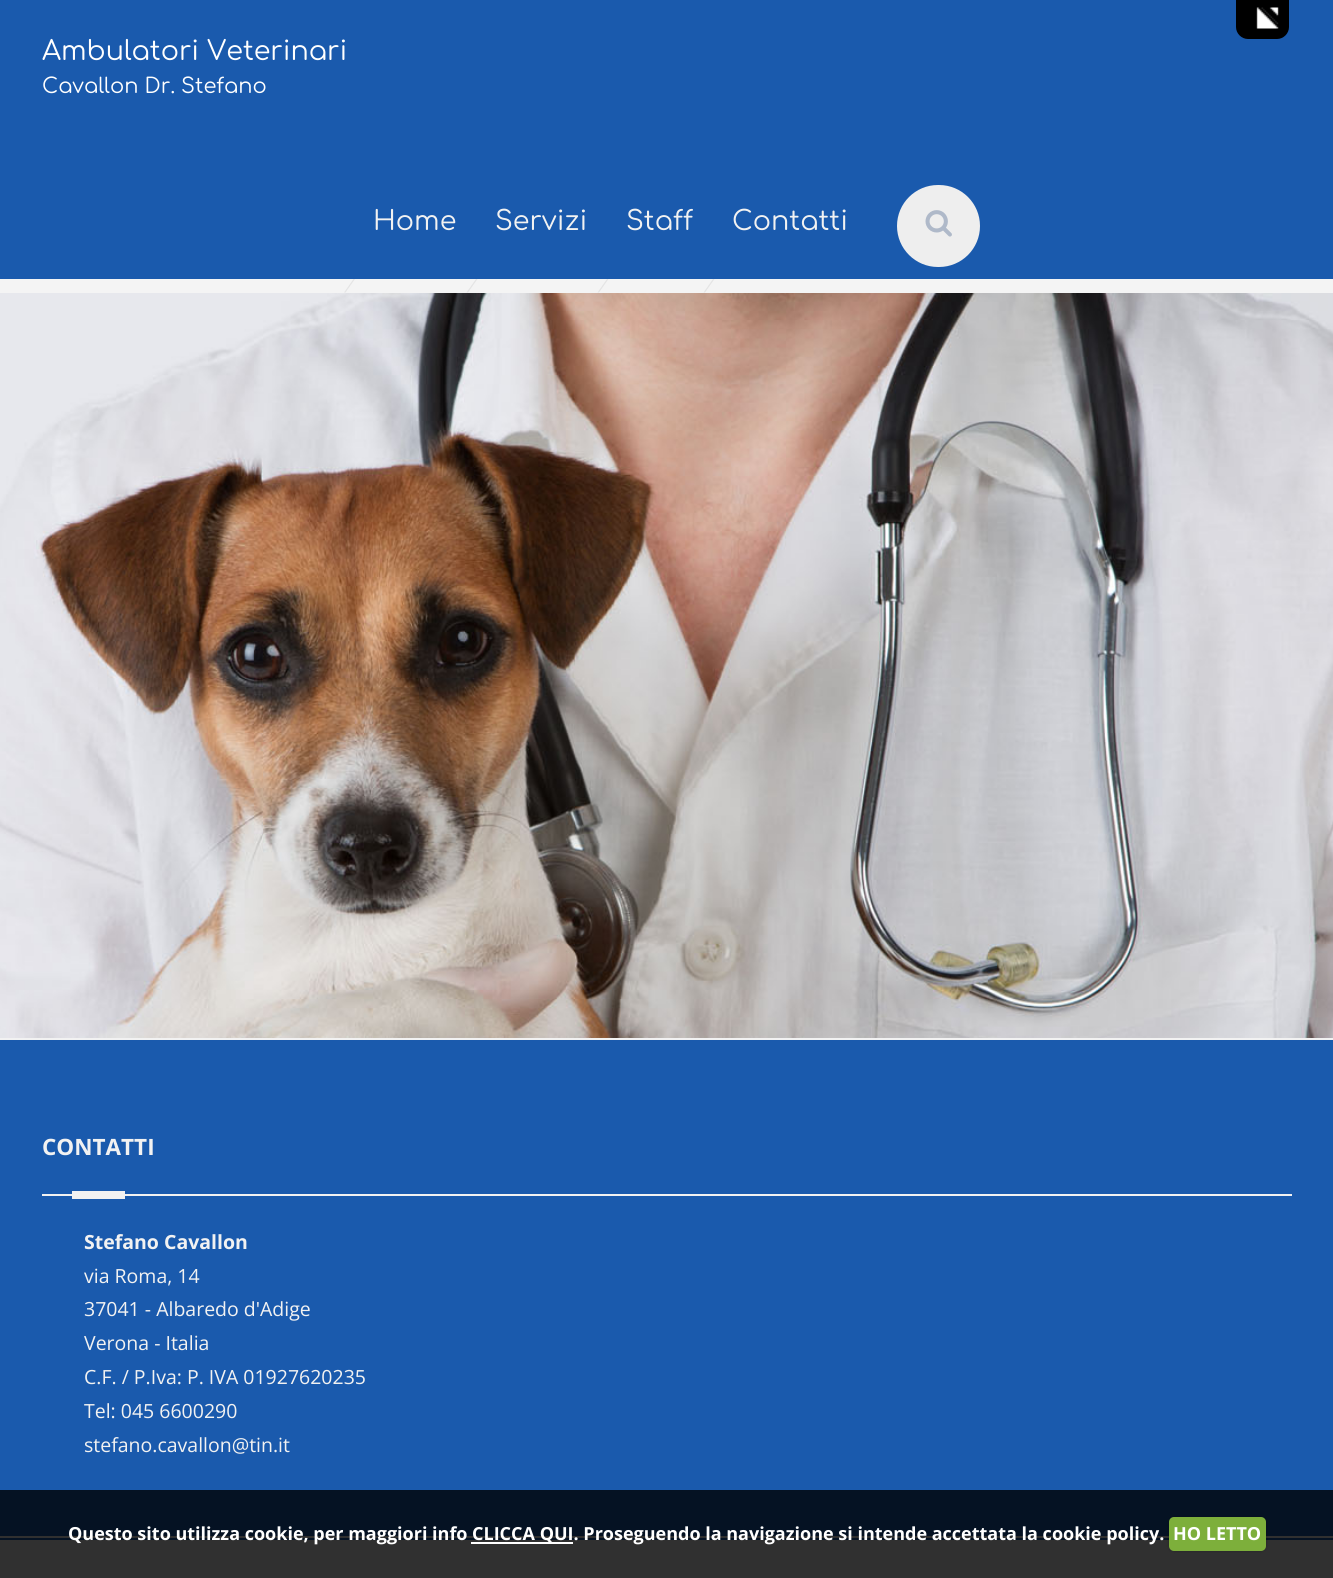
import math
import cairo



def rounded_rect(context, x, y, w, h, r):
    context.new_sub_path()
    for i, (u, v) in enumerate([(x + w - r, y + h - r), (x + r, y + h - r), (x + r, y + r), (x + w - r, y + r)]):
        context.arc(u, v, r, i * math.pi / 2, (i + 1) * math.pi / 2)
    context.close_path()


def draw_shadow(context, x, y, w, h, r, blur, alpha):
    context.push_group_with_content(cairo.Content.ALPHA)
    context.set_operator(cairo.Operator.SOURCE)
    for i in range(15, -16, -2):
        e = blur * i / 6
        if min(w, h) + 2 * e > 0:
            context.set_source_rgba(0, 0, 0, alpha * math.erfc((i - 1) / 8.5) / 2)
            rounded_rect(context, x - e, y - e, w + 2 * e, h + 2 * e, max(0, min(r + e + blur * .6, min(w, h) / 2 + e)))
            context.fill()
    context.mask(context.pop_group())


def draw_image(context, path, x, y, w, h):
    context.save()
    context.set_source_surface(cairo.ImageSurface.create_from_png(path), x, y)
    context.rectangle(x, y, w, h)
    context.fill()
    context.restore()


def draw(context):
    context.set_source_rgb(26 / 255, 90 / 255, 173 / 255)
    context.paint()
    context.set_source_rgb(0, 0, 0)
    context.new_path()
    context.move_to(1236, 0)
    context.line_to(1289, 0)
    context.line_to(1289, 27)
    context.curve_to(1289, 33.5, 1283.5, 39, 1277, 39)
    context.line_to(1248, 39)
    context.curve_to(1241.5, 39, 1236, 33.5, 1236, 27)
    context.close_path()
    context.fill()
    draw_image(context, "images/1.png", 1256, 7, 23, 22)
    context.set_source_rgb(244 / 255, 244 / 255, 244 / 255)
    context.rectangle(0, 279, 1333, 14)
    context.fill()
    context.set_source_rgb(228 / 255, 228 / 255, 228 / 255)
    context.new_path()
    context.move_to(353.5, 279)
    context.line_to(355, 279)
    context.line_to(345.5, 292.5)
    context.line_to(344, 292.5)
    context.close_path()
    context.fill()
    context.new_path()
    context.move_to(476, 279)
    context.line_to(477.5, 279)
    context.line_to(468, 292.5)
    context.line_to(466.5, 292.5)
    context.close_path()
    context.fill()
    context.new_path()
    context.move_to(607, 279)
    context.line_to(608.5, 279)
    context.line_to(599, 292.5)
    context.line_to(597.5, 292.5)
    context.close_path()
    context.fill()
    context.new_path()
    context.move_to(713, 279)
    context.line_to(714.5, 279)
    context.line_to(705, 292.5)
    context.line_to(703.5, 292.5)
    context.close_path()
    context.fill()
    context.set_source_rgb(238 / 255, 238 / 255, 238 / 255)
    rounded_rect(context, 897, 185, 83, 82, 41)
    context.fill()
    draw_image(context, "images/2.png", 925, 210, 27, 27)
    draw_image(context, "images/3.png", 0, 293, 1333, 745)
    context.set_source_rgb(5 / 255, 18 / 255, 35 / 255)
    context.rectangle(0, 1490, 1333, 46)
    context.fill()
    context.set_source_rgb(242 / 255, 242 / 255, 242 / 255)
    context.rectangle(0, 1038, 1333, 2)
    context.fill()
    context.set_source_rgb(48 / 255, 48 / 255, 48 / 255)
    context.rectangle(0, 1536, 1333, 2)
    context.fill()
    context.set_source_rgb(242 / 255, 242 / 255, 242 / 255)
    context.rectangle(42, 1194, 1250, 2)
    context.fill()
    context.rectangle(72, 1191, 53, 8)
    context.fill()
    context.set_source_rgb(48 / 255, 48 / 255, 48 / 255)
    context.rectangle(0, 1540, 1333, 38)
    context.fill()
    context.set_source_rgb(5 / 255, 18 / 255, 35 / 255)
    context.rectangle(0, 1538, 1333, 2)
    context.fill()
    context.set_source_rgb(1, 1, 1)
    context.rectangle(471, 1542, 102, 2)
    context.fill()
    context.set_source_rgb(0, 0, 0)
    draw_shadow(context, 1169, 1517, 97, 34, 5, 1.5, 0.25)
    context.set_source_rgb(125 / 255, 175 / 255, 59 / 255)
    rounded_rect(context, 1169, 1517, 97, 34, 5)
    context.fill()
    context.select_font_face("Comfortaa")
    context.set_font_size(27)
    context.set_source_rgb(1, 1, 1)
    context.move_to(42, 60)
    context.show_text("Ambulatori Veterinari")
    context.set_font_size(21)
    context.move_to(42, 93)
    context.show_text("Cavallon Dr. Stefano")
    context.set_font_size(27)
    context.set_source_rgb(242 / 255, 242 / 255, 242 / 255)
    context.move_to(373, 230)
    context.show_text("Home")
    context.move_to(495, 230)
    context.show_text("Servizi")
    context.move_to(626, 230)
    context.show_text("Staff")
    context.move_to(732, 230)
    context.show_text("Contatti")
    context.select_font_face("Open Sans", cairo.FontSlant.NORMAL, cairo.FontWeight.BOLD)
    context.set_font_size(22.5)
    context.move_to(42, 1155)
    context.show_text("CONTATTI")
    context.set_font_size(19.5)
    context.move_to(84, 1249)
    context.show_text("Stefano Cavallon")
    context.select_font_face("Open Sans")
    context.move_to(84, 1283)
    context.show_text("via Roma, 14")
    context.move_to(84, 1316)
    context.show_text("37041 - Albaredo d'Adige")
    context.move_to(84, 1350)
    context.show_text("Verona - Italia")
    context.move_to(84, 1384)
    context.show_text("C.F. / P.Iva: P. IVA 01927620235")
    context.move_to(84, 1418)
    context.show_text("Tel: 045 6600290")
    context.move_to(84, 1452)
    context.show_text("stefano.cavallon@tin.it")
    context.select_font_face("Open Sans", cairo.FontSlant.NORMAL, cairo.FontWeight.BOLD)
    context.set_font_size(18)
    context.set_source_rgb(1, 1, 1)
    context.move_to(68, 1540)
    context.show_text("Questo sito utilizza cookie, per maggiori info")
    context.move_to(472, 1540)
    context.show_text("CLICCA QUI. Proseguendo la navigazione si intende accettata la cookie policy.")
    context.move_to(1173, 1540)
    context.show_text("HO LETTO")


surface = cairo.ImageSurface(cairo.Format.RGB24, 1333, 1578)
context = cairo.Context(surface)
options = cairo.FontOptions()
options.set_hint_metrics(cairo.HintMetrics.OFF)
options.set_hint_style(cairo.HintStyle.NONE)
context.set_font_options(options)
context.set_miter_limit(4)
draw(context)
surface.write_to_png("out.png")
